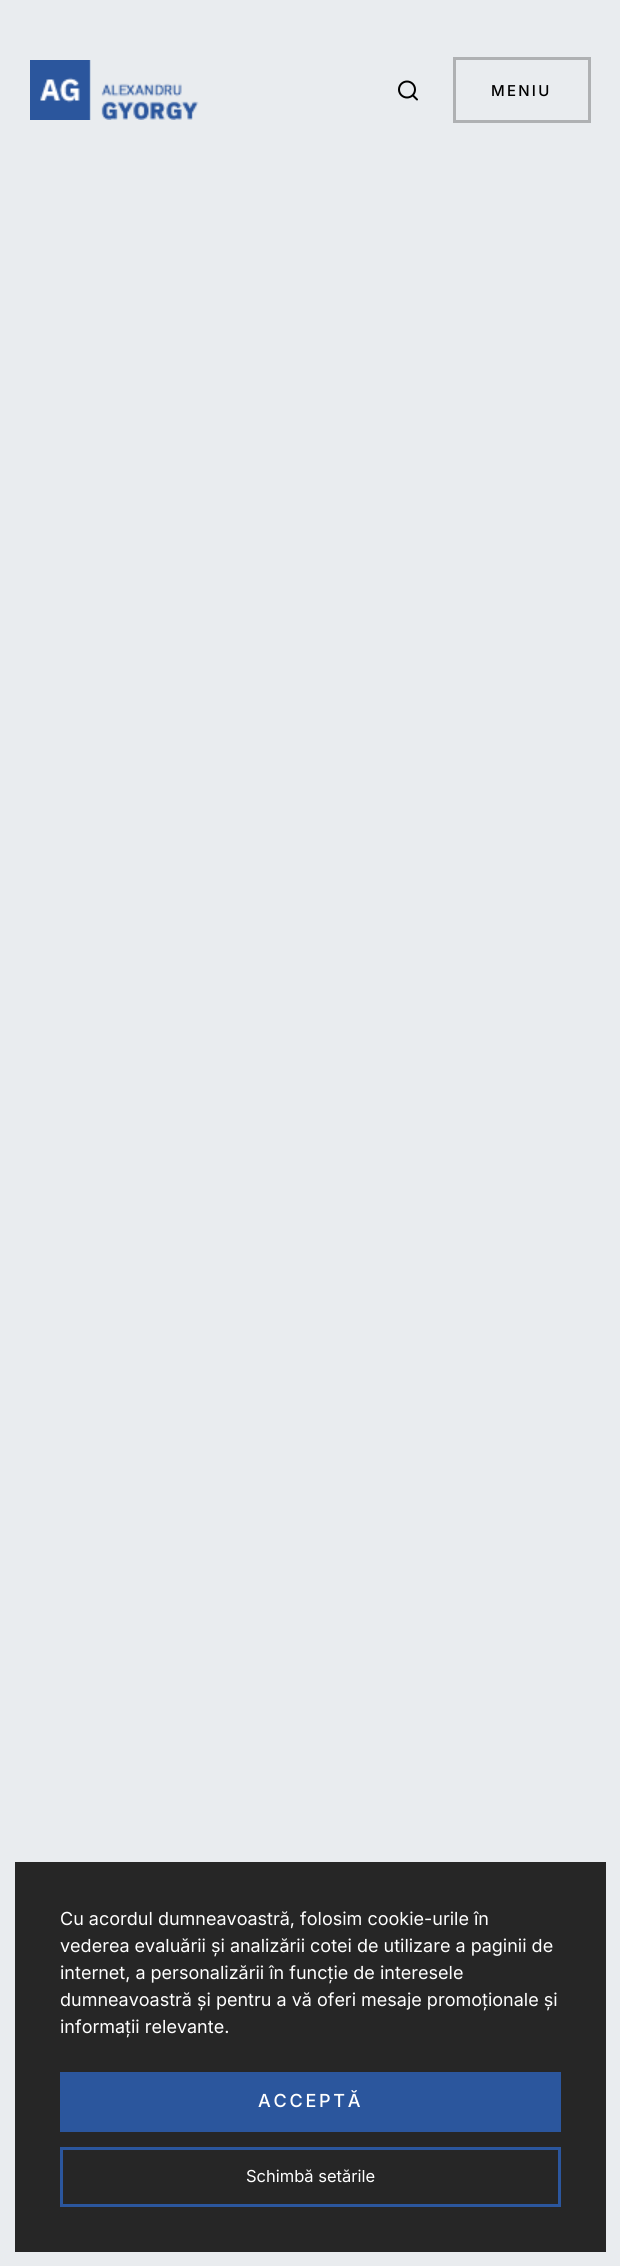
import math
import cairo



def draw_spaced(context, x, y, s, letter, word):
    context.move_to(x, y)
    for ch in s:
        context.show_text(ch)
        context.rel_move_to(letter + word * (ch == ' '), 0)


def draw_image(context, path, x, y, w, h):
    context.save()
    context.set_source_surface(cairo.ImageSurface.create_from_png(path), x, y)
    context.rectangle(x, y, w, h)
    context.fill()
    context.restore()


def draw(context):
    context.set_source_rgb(233 / 255, 236 / 255, 239 / 255)
    context.paint()
    draw_image(context, "images/1.png", 30, 60, 169, 60)
    draw_image(context, "images/2.png", 398, 80, 20, 21)
    context.rectangle(454.5, 58.5, 135, 63)
    context.set_source_rgb(175 / 255, 177 / 255, 179 / 255)
    context.set_line_width(3)
    context.stroke()
    context.set_source_rgb(38 / 255, 38 / 255, 38 / 255)
    context.rectangle(15, 1862, 591, 390)
    context.fill()
    context.set_source_rgb(43 / 255, 86 / 255, 157 / 255)
    context.rectangle(60, 2072, 501, 60)
    context.fill()
    context.rectangle(61.5, 2148.5, 498, 57)
    context.stroke()
    context.select_font_face("Inter Medium")
    context.set_font_size(15)
    context.set_source_rgb(0, 0, 0)
    draw_spaced(context, 491, 96, "MENIU", 2.25, 0)
    context.select_font_face("Inter")
    context.set_font_size(18)
    context.set_source_rgb(1, 1, 1)
    context.move_to(60, 1925)
    context.show_text("Cu acordul dumneavoastră, folosim cookie-urile în")
    context.move_to(60, 1952)
    context.show_text("vederea evaluării și analizării cotei de utilizare a paginii de")
    context.move_to(60, 1979)
    context.show_text("internet, a personalizării în funcție de interesele")
    context.move_to(60, 2006)
    context.show_text("dumneavoastră și pentru a vă oferi mesaje promoționale și")
    context.move_to(60, 2033)
    context.show_text("informații relevante.")
    context.select_font_face("Inter Medium")
    draw_spaced(context, 258, 2107, "ACCEPTĂ", 2.75, 0)
    context.select_font_face("Inter")
    context.set_font_size(16.5)
    context.move_to(246, 2182)
    context.show_text("Schimbă setările")


surface = cairo.ImageSurface(cairo.Format.RGB24, 620, 2266)
context = cairo.Context(surface)
options = cairo.FontOptions()
options.set_hint_metrics(cairo.HintMetrics.OFF)
options.set_hint_style(cairo.HintStyle.NONE)
context.set_font_options(options)
context.set_miter_limit(4)
draw(context)
surface.write_to_png("out.png")
